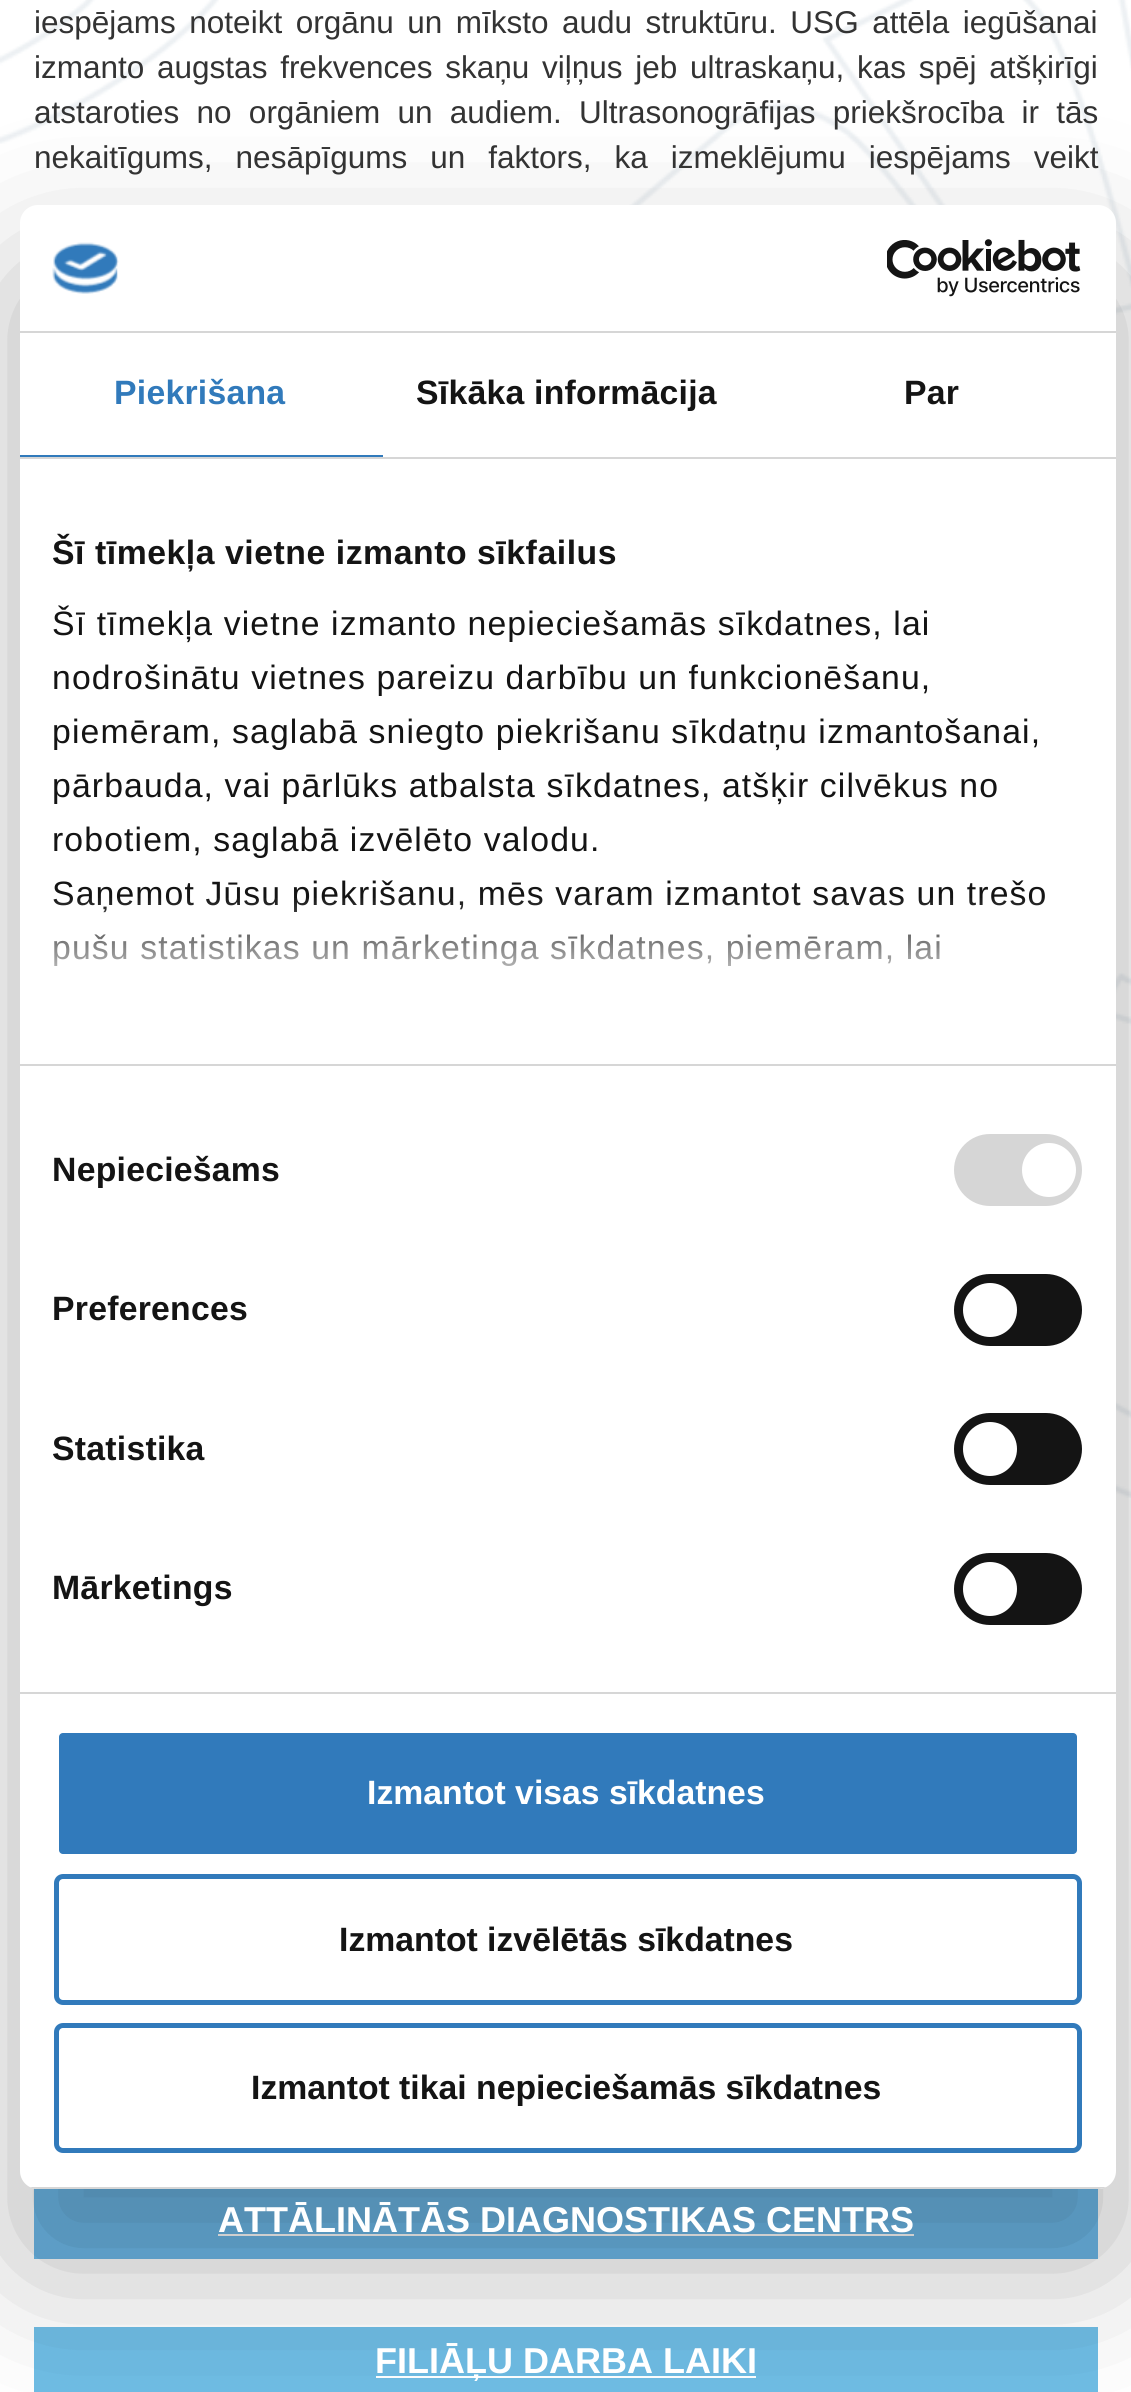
import math
import cairo



def draw_spaced(context, x, y, s, letter, word):
    context.move_to(x, y)
    for ch in s:
        context.show_text(ch)
        context.rel_move_to(letter + word * (ch == ' '), 0)


def rounded_rect(context, x, y, w, h, r):
    context.new_sub_path()
    for i, (u, v) in enumerate([(x + w - r, y + h - r), (x + r, y + h - r), (x + r, y + r), (x + w - r, y + r)]):
        context.arc(u, v, r, i * math.pi / 2, (i + 1) * math.pi / 2)
    context.close_path()


def draw_shadow(context, x, y, w, h, r, blur, alpha):
    context.push_group_with_content(cairo.Content.ALPHA)
    context.set_operator(cairo.Operator.SOURCE)
    for i in range(15, -16, -2):
        e = blur * i / 6
        if min(w, h) + 2 * e > 0:
            context.set_source_rgba(0, 0, 0, alpha * math.erfc((i - 1) / 8.5) / 2)
            rounded_rect(context, x - e, y - e, w + 2 * e, h + 2 * e, max(0, min(r + e + blur * .6, min(w, h) / 2 + e)))
            context.fill()
    context.mask(context.pop_group())


def draw_image(context, path, x, y, w, h):
    context.save()
    context.set_source_surface(cairo.ImageSurface.create_from_png(path), x, y)
    context.rectangle(x, y, w, h)
    context.fill()
    context.restore()


def draw(context):
    context.set_source_rgb(1, 1, 1)
    context.paint()
    draw_image(context, "images/1.png", 0, 0, 219, 144)
    draw_image(context, "images/2.png", 629, 0, 502, 1498)
    context.set_source_rgb(109 / 255, 185 / 255, 233 / 255)
    context.rectangle(34, 2188, 1064, 71)
    context.fill()
    context.set_source_rgb(1, 1, 1)
    context.rectangle(218, 2234, 696, 2)
    context.fill()
    context.set_source_rgb(111 / 255, 189 / 255, 229 / 255)
    context.rectangle(34, 2327, 1064, 65)
    context.fill()
    context.set_source_rgb(1, 1, 1)
    context.rectangle(376, 2376, 380, 2)
    context.fill()
    context.set_source_rgb(0, 0, 0)
    draw_shadow(context, 20, 277, 1096, 1984, 18, 76.5, 0.3)
    context.set_source_rgb(1, 1, 1)
    rounded_rect(context, 20, 205, 1096, 1984, 18)
    context.fill()
    context.set_source_rgb(214 / 255, 214 / 255, 214 / 255)
    context.rectangle(20, 331, 1096, 2)
    context.fill()
    draw_image(context, "images/3.png", 52, 242, 67, 52)
    draw_image(context, "images/4.png", 887, 239, 194, 58)
    context.rectangle(20, 457, 1096, 2)
    context.fill()
    context.set_source_rgb(49 / 255, 122 / 255, 187 / 255)
    context.rectangle(20, 455, 363, 2)
    context.fill()
    context.set_source_rgb(214 / 255, 214 / 255, 214 / 255)
    context.rectangle(20, 1064, 1096, 2)
    context.fill()
    context.rectangle(20, 1692, 1096, 2)
    context.fill()
    rounded_rect(context, 954, 1134, 128, 72, 36)
    context.fill()
    context.set_source_rgb(1, 1, 1)
    context.arc(1049, 1170, 27, 0, 2 * math.pi)
    context.fill()
    context.set_source_rgb(20 / 255, 20 / 255, 20 / 255)
    rounded_rect(context, 954, 1274, 128, 72, 36)
    context.fill()
    context.set_source_rgb(1, 1, 1)
    context.arc(990, 1310, 27, 0, 2 * math.pi)
    context.fill()
    context.set_source_rgb(20 / 255, 20 / 255, 20 / 255)
    rounded_rect(context, 954, 1413, 128, 72, 36)
    context.fill()
    context.set_source_rgb(1, 1, 1)
    context.arc(990, 1449, 27, 0, 2 * math.pi)
    context.fill()
    context.set_source_rgb(20 / 255, 20 / 255, 20 / 255)
    rounded_rect(context, 954, 1553, 128, 72, 36)
    context.fill()
    context.set_source_rgb(1, 1, 1)
    context.arc(990, 1589, 27, 0, 2 * math.pi)
    context.fill()
    context.save()
    rounded_rect(context, 20, 205, 1096, 1984, 18)
    context.clip()
    context.set_source_rgb(214 / 255, 214 / 255, 214 / 255)
    context.rectangle(30, 2187, 1076, 2)
    context.fill()
    context.restore()
    context.set_source_rgb(49 / 255, 122 / 255, 187 / 255)
    rounded_rect(context, 56.5, 1730.5, 1023, 126, 6.5)
    context.fill_preserve()
    context.set_source_rgb(1, 1, 1)
    context.set_line_width(5)
    context.stroke()
    rounded_rect(context, 56.5, 1876.5, 1023, 126, 6.5)
    context.set_source_rgb(49 / 255, 122 / 255, 187 / 255)
    context.stroke()
    rounded_rect(context, 56.5, 2025.5, 1023, 125, 6.5)
    context.stroke()
    context.select_font_face("Liberation Sans")
    context.set_font_size(31.5)
    context.set_source_rgb(51 / 255, 51 / 255, 51 / 255)
    draw_spaced(context, 34, 33, "iespējams noteikt orgānu un mīksto audu struktūru. USG attēla iegūšanai", 0, 4.75)
    draw_spaced(context, 34, 78, "izmanto augstas frekvences skaņu viļņus jeb ultraskaņu, kas spēj atšķirīgi", 0, 4)
    draw_spaced(context, 34, 123, "atstaroties no orgāniem un audiem. Ultrasonogrāfijas priekšrocība ir tās", 0, 8.5)
    draw_spaced(context, 34, 168, "nekaitīgums, nesāpīgums un faktors, ka izmeklējumu iespējams veikt", 0, 14.25)
    context.select_font_face("Liberation Sans", cairo.FontSlant.NORMAL, cairo.FontWeight.BOLD)
    context.set_font_size(36)
    context.set_source_rgb(1, 1, 1)
    context.move_to(218, 2232)
    context.show_text("ATTĀLINĀTĀS DIAGNOSTIKAS CENTRS")
    context.move_to(375, 2373)
    context.show_text("FILIĀĻU DARBA LAIKI")
    context.set_font_size(33.75)
    context.set_source_rgb(49 / 255, 122 / 255, 187 / 255)
    draw_spaced(context, 114, 404, "Piekrišana", 0.25, 0)
    context.set_source_rgb(20 / 255, 20 / 255, 20 / 255)
    draw_spaced(context, 416, 404, "Sīkāka informācija", 0.25, 0)
    draw_spaced(context, 904, 404, "Par", 0.25, 0)
    draw_spaced(context, 52, 564, "Šī tīmekļa vietne izmanto sīkfailus", 0.55, 0)
    context.select_font_face("Liberation Sans")
    draw_spaced(context, 52, 635, "Šī tīmekļa vietne izmanto nepieciešamās sīkdatnes, lai", 1.12, 0)
    draw_spaced(context, 52, 689, "nodrošinātu vietnes pareizu darbību un funkcionēšanu,", 1.12, 0)
    draw_spaced(context, 52, 743, "piemēram, saglabā sniegto piekrišanu sīkdatņu izmantošanai,", 1.12, 0)
    draw_spaced(context, 52, 797, "pārbauda, vai pārlūks atbalsta sīkdatnes, atšķir cilvēkus no", 1.12, 0)
    draw_spaced(context, 52, 851, "robotiem, saglabā izvēlēto valodu.", 1.12, 0)
    draw_spaced(context, 52, 905, "Saņemot Jūsu piekrišanu, mēs varam izmantot savas un trešo", 1.12, 0)
    draw_spaced(context, 52, 959, "pušu statistikas un mārketinga sīkdatnes, piemēram, lai", 1.12, 0)
    gradient = cairo.LinearGradient(552, 1065, 552, 896)
    gradient.add_color_stop_rgba(0, 1, 1, 1, 1)
    gradient.add_color_stop_rgba(0.5, 1, 1, 1, 0.8)
    gradient.add_color_stop_rgba(1, 1, 1, 1, 0)
    context.set_source(gradient)
    context.rectangle(53, 898, 992, 68)
    context.fill()
    context.select_font_face("Liberation Sans", cairo.FontSlant.NORMAL, cairo.FontWeight.BOLD)
    context.set_source_rgb(20 / 255, 20 / 255, 20 / 255)
    draw_spaced(context, 52, 1181, "Nepieciešams", 0.25, 0)
    draw_spaced(context, 52, 1320, "Preferences", 0.25, 0)
    draw_spaced(context, 52, 1460, "Statistika", 0.25, 0)
    draw_spaced(context, 52, 1599, "Mārketings", 0.25, 0)
    context.set_source_rgb(1, 1, 1)
    context.move_to(367, 1804)
    context.show_text("Izmantot visas sīkdatnes")
    context.set_source_rgb(20 / 255, 20 / 255, 20 / 255)
    context.move_to(339, 1951)
    context.show_text("Izmantot izvēlētās sīkdatnes")
    context.move_to(251, 2099)
    context.show_text("Izmantot tikai nepieciešamās sīkdatnes")


surface = cairo.ImageSurface(cairo.Format.RGB24, 1131, 2392)
context = cairo.Context(surface)
options = cairo.FontOptions()
options.set_hint_metrics(cairo.HintMetrics.OFF)
options.set_hint_style(cairo.HintStyle.NONE)
context.set_font_options(options)
context.set_miter_limit(4)
draw(context)
surface.write_to_png("out.png")
